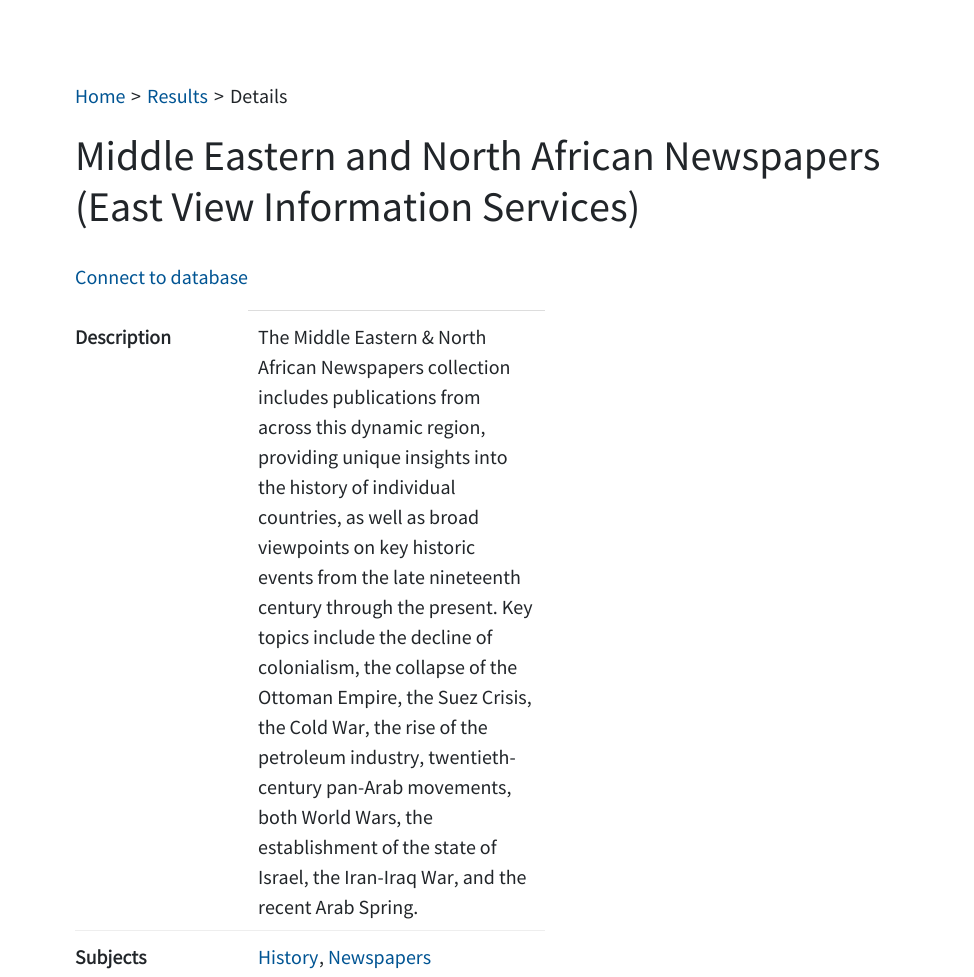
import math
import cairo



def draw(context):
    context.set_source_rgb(1, 1, 1)
    context.paint()
    context.set_source_rgb(221 / 255, 221 / 255, 221 / 255)
    context.rectangle(248, 310, 297, 1)
    context.fill()
    context.set_source_rgb(238 / 255, 238 / 255, 238 / 255)
    context.rectangle(75, 930, 470, 1)
    context.fill()
    context.select_font_face("Source Sans Pro")
    context.set_font_size(20)
    context.set_source_rgb(0, 84 / 255, 147 / 255)
    context.move_to(75, 103)
    context.show_text("Home")
    context.set_source_rgb(33 / 255, 37 / 255, 41 / 255)
    context.move_to(131, 103)
    context.show_text(">")
    context.set_source_rgb(0, 84 / 255, 147 / 255)
    context.move_to(147, 103)
    context.show_text("Results")
    context.set_source_rgb(33 / 255, 37 / 255, 41 / 255)
    context.move_to(214, 103)
    context.show_text(">")
    context.move_to(230, 103)
    context.show_text("Details")
    context.set_font_size(42.1)
    context.move_to(75, 170)
    context.show_text("Middle Eastern and North African Newspapers")
    context.move_to(75, 221)
    context.show_text("(East View Information Services)")
    context.set_font_size(20)
    context.set_source_rgb(0, 84 / 255, 147 / 255)
    context.move_to(75, 284)
    context.show_text("Connect to database")
    context.select_font_face("Source Sans Pro", cairo.FontSlant.NORMAL, cairo.FontWeight.BOLD)
    context.set_source_rgb(33 / 255, 37 / 255, 41 / 255)
    context.move_to(75, 344)
    context.show_text("Description")
    context.select_font_face("Source Sans Pro")
    context.move_to(258, 344)
    context.show_text("The Middle Eastern & North")
    context.move_to(258, 374)
    context.show_text("African Newspapers collection")
    context.move_to(258, 404)
    context.show_text("includes publications from")
    context.move_to(258, 434)
    context.show_text("across this dynamic region,")
    context.move_to(258, 464)
    context.show_text("providing unique insights into")
    context.move_to(258, 494)
    context.show_text("the history of individual")
    context.move_to(258, 524)
    context.show_text("countries, as well as broad")
    context.move_to(258, 554)
    context.show_text("viewpoints on key historic")
    context.move_to(258, 584)
    context.show_text("events from the late nineteenth")
    context.move_to(258, 614)
    context.show_text("century through the present. Key")
    context.move_to(258, 644)
    context.show_text("topics include the decline of")
    context.move_to(258, 674)
    context.show_text("colonialism, the collapse of the")
    context.move_to(258, 704)
    context.show_text("Ottoman Empire, the Suez Crisis,")
    context.move_to(258, 734)
    context.show_text("the Cold War, the rise of the")
    context.move_to(258, 764)
    context.show_text("petroleum industry, twentieth-")
    context.move_to(258, 794)
    context.show_text("century pan-Arab movements,")
    context.move_to(258, 824)
    context.show_text("both World Wars, the")
    context.move_to(258, 854)
    context.show_text("establishment of the state of")
    context.move_to(258, 884)
    context.show_text("Israel, the Iran-Iraq War, and the")
    context.move_to(258, 914)
    context.show_text("recent Arab Spring.")
    context.select_font_face("Source Sans Pro", cairo.FontSlant.NORMAL, cairo.FontWeight.BOLD)
    context.move_to(75, 964)
    context.show_text("Subjects")
    context.select_font_face("Source Sans Pro")
    context.set_source_rgb(0, 84 / 255, 147 / 255)
    context.move_to(258, 964)
    context.show_text("History")
    context.set_source_rgb(33 / 255, 37 / 255, 41 / 255)
    context.move_to(319, 964)
    context.show_text(",")
    context.set_source_rgb(0, 84 / 255, 147 / 255)
    context.move_to(328, 964)
    context.show_text("Newspapers")


surface = cairo.ImageSurface(cairo.Format.RGB24, 974, 977)
context = cairo.Context(surface)
options = cairo.FontOptions()
options.set_hint_metrics(cairo.HintMetrics.OFF)
options.set_hint_style(cairo.HintStyle.NONE)
context.set_font_options(options)
context.set_miter_limit(4)
draw(context)
surface.write_to_png("out.png")
